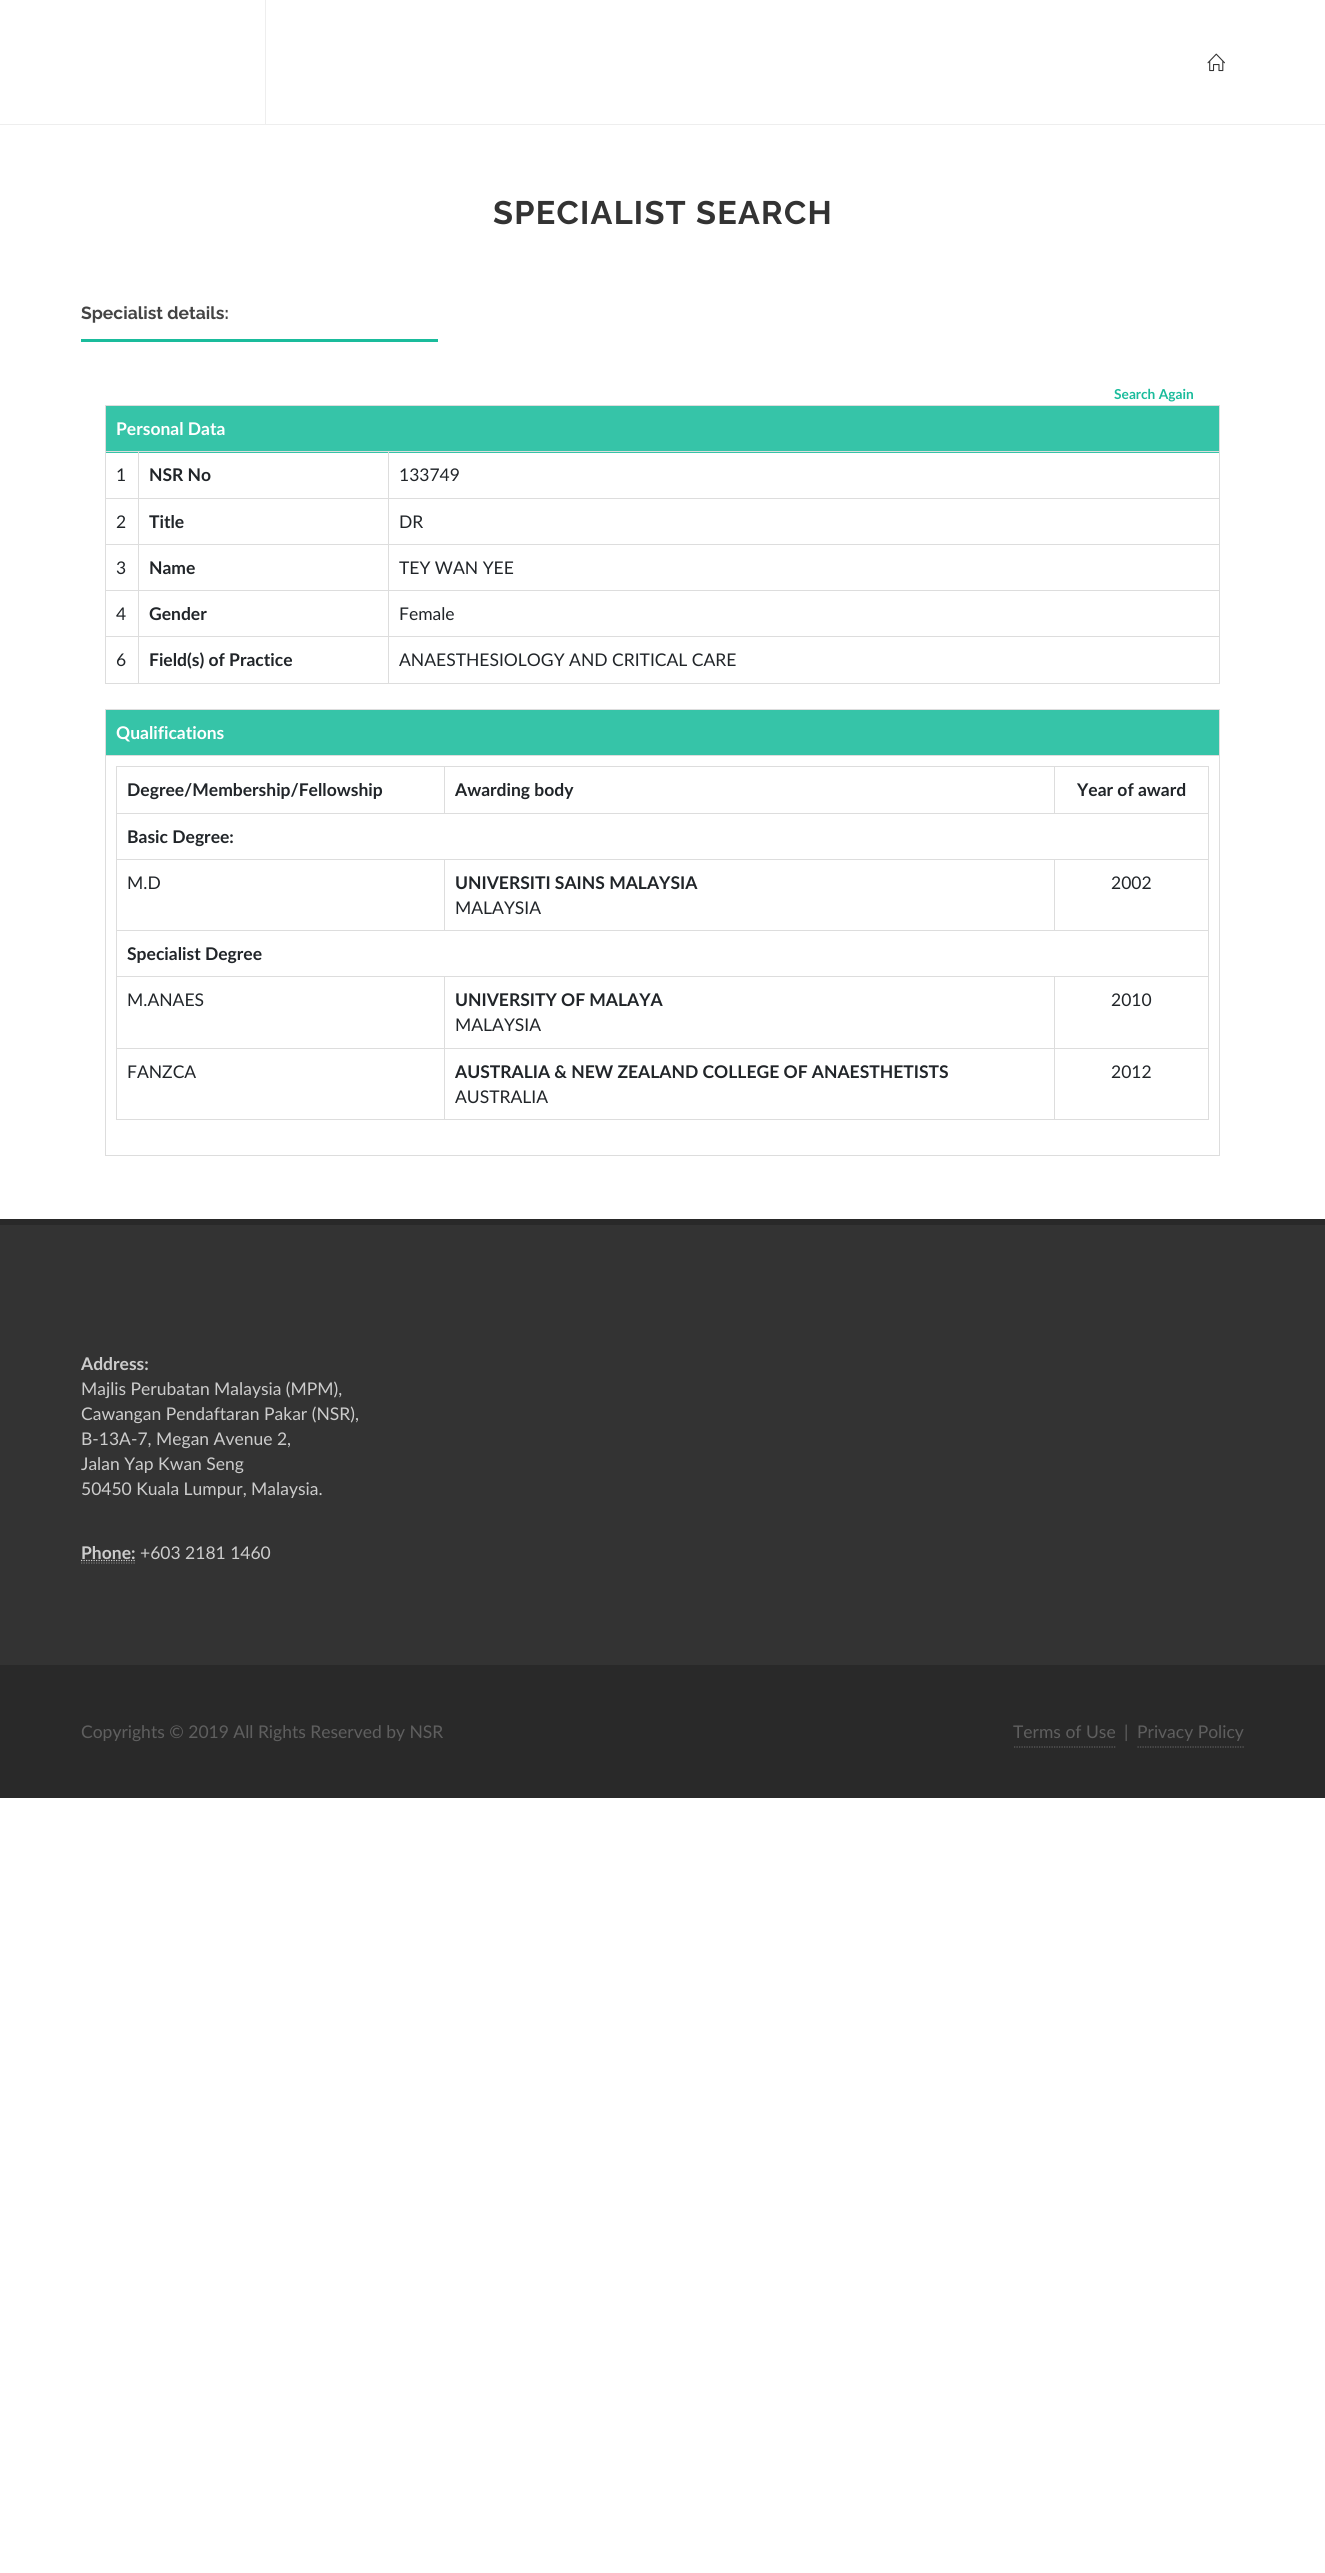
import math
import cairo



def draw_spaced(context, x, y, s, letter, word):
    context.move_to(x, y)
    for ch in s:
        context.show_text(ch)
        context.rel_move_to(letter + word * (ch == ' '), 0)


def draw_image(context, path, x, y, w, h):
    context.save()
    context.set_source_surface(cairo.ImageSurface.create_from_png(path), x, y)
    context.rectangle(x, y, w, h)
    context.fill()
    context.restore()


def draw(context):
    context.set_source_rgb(1, 1, 1)
    context.paint()
    context.set_source_rgb(238 / 255, 238 / 255, 238 / 255)
    context.rectangle(0, 124, 1325, 1)
    context.fill()
    context.rectangle(265, 0, 1, 125)
    context.fill()
    draw_image(context, "images/1.png", 1207, 53, 18, 19)
    context.set_source_rgb(26 / 255, 188 / 255, 156 / 255)
    context.rectangle(81, 339, 357, 3)
    context.fill()
    context.set_source_rgb(221 / 255, 221 / 255, 221 / 255)
    context.rectangle(105, 405, 1115, 1)
    context.fill()
    context.rectangle(1219, 405, 1, 279)
    context.fill()
    context.rectangle(105, 683, 1115, 1)
    context.fill()
    context.rectangle(105, 405, 1, 279)
    context.fill()
    context.set_source_rgb(54 / 255, 196 / 255, 168 / 255)
    context.rectangle(106, 406, 1113, 47)
    context.fill()
    context.set_source_rgb(221 / 255, 221 / 255, 221 / 255)
    context.rectangle(388, 451, 832, 1)
    context.fill()
    context.rectangle(388, 498, 832, 1)
    context.fill()
    context.rectangle(388, 544, 832, 1)
    context.fill()
    context.rectangle(388, 590, 832, 1)
    context.fill()
    context.rectangle(388, 636, 832, 1)
    context.fill()
    context.rectangle(388, 636, 1, 48)
    context.fill()
    context.rectangle(138, 636, 251, 1)
    context.fill()
    context.rectangle(388, 590, 1, 48)
    context.fill()
    context.rectangle(138, 590, 251, 1)
    context.fill()
    context.rectangle(388, 544, 1, 47)
    context.fill()
    context.rectangle(138, 544, 251, 1)
    context.fill()
    context.rectangle(388, 498, 1, 47)
    context.fill()
    context.rectangle(138, 498, 251, 1)
    context.fill()
    context.rectangle(388, 451, 1, 48)
    context.fill()
    context.rectangle(138, 451, 251, 1)
    context.fill()
    context.rectangle(138, 636, 1, 48)
    context.fill()
    context.rectangle(105, 636, 34, 1)
    context.fill()
    context.rectangle(138, 590, 1, 48)
    context.fill()
    context.rectangle(105, 590, 34, 1)
    context.fill()
    context.rectangle(138, 544, 1, 47)
    context.fill()
    context.rectangle(105, 544, 34, 1)
    context.fill()
    context.rectangle(138, 498, 1, 47)
    context.fill()
    context.rectangle(105, 498, 34, 1)
    context.fill()
    context.rectangle(138, 451, 1, 48)
    context.fill()
    context.rectangle(105, 451, 34, 1)
    context.fill()
    context.rectangle(105, 709, 1115, 1)
    context.fill()
    context.rectangle(1219, 709, 1, 447)
    context.fill()
    context.rectangle(105, 1155, 1115, 1)
    context.fill()
    context.rectangle(105, 709, 1, 447)
    context.fill()
    context.set_source_rgb(54 / 255, 196 / 255, 168 / 255)
    context.rectangle(106, 710, 1113, 45)
    context.fill()
    context.set_source_rgb(221 / 255, 221 / 255, 221 / 255)
    context.rectangle(105, 755, 1115, 1)
    context.fill()
    context.rectangle(116, 766, 1093, 1)
    context.fill()
    context.rectangle(1208, 766, 1, 354)
    context.fill()
    context.rectangle(116, 1119, 1093, 1)
    context.fill()
    context.rectangle(116, 766, 1, 354)
    context.fill()
    context.rectangle(116, 813, 1093, 1)
    context.fill()
    context.rectangle(444, 766, 1, 48)
    context.fill()
    context.rectangle(1054, 766, 1, 48)
    context.fill()
    context.rectangle(1054, 859, 155, 1)
    context.fill()
    context.rectangle(116, 930, 1093, 1)
    context.fill()
    context.rectangle(1054, 859, 1, 72)
    context.fill()
    context.rectangle(444, 859, 611, 1)
    context.fill()
    context.rectangle(444, 859, 1, 72)
    context.fill()
    context.rectangle(116, 859, 329, 1)
    context.fill()
    context.rectangle(1054, 976, 155, 1)
    context.fill()
    context.rectangle(1054, 1048, 155, 1)
    context.fill()
    context.rectangle(1054, 1048, 1, 72)
    context.fill()
    context.rectangle(444, 1048, 611, 1)
    context.fill()
    context.rectangle(1054, 976, 1, 73)
    context.fill()
    context.rectangle(444, 976, 611, 1)
    context.fill()
    context.rectangle(444, 1048, 1, 72)
    context.fill()
    context.rectangle(116, 1048, 329, 1)
    context.fill()
    context.rectangle(444, 976, 1, 73)
    context.fill()
    context.rectangle(116, 976, 329, 1)
    context.fill()
    context.set_source_rgb(51 / 255, 51 / 255, 51 / 255)
    context.rectangle(0, 1225, 1325, 440)
    context.fill()
    context.set_source_rgb(41 / 255, 41 / 255, 41 / 255)
    context.rectangle(0, 1219, 1325, 6)
    context.fill()
    context.new_path()
    context.move_to(81, 1563)
    context.line_to(136, 1563)
    context.set_source_rgb(119 / 255, 119 / 255, 119 / 255)
    context.set_line_width(1.2)
    context.set_dash([1.25, 1.25])
    context.stroke()
    context.new_path()
    context.move_to(81, 1560.5)
    context.line_to(135.5, 1560.5)
    context.set_source_rgb(204 / 255, 204 / 255, 204 / 255)
    context.stroke()
    context.set_source_rgb(41 / 255, 41 / 255, 41 / 255)
    context.rectangle(0, 1665, 1325, 133)
    context.fill()
    context.new_path()
    context.move_to(1014, 1747)
    context.line_to(1116, 1747)
    context.set_source_rgb(95 / 255, 95 / 255, 95 / 255)
    context.stroke()
    context.new_path()
    context.move_to(1137.5, 1747)
    context.line_to(1244, 1747)
    context.stroke()
    context.select_font_face("Raleway", cairo.FontSlant.NORMAL, cairo.FontWeight.BOLD)
    context.set_font_size(32.5)
    context.set_source_rgb(51 / 255, 51 / 255, 51 / 255)
    draw_spaced(context, 493, 224, "SPECIALIST SEARCH", 1.25, 0)
    context.set_font_size(17.5)
    context.set_source_rgb(68 / 255, 68 / 255, 68 / 255)
    context.move_to(81, 319)
    context.show_text("Specialist details:")
    context.select_font_face("Lato", cairo.FontSlant.NORMAL, cairo.FontWeight.BOLD)
    context.set_font_size(13.75)
    context.set_source_rgb(26 / 255, 188 / 255, 156 / 255)
    context.move_to(1114, 399)
    context.show_text("Search Again")
    context.set_font_size(17.5)
    context.set_source_rgb(1, 1, 1)
    context.move_to(116, 435)
    context.show_text("Personal Data")
    context.select_font_face("Lato")
    context.set_source_rgb(33 / 255, 37 / 255, 41 / 255)
    context.move_to(116, 481)
    context.show_text("1")
    context.select_font_face("Lato", cairo.FontSlant.NORMAL, cairo.FontWeight.BOLD)
    context.move_to(149, 481)
    context.show_text("NSR No")
    context.select_font_face("Lato")
    context.move_to(399, 481)
    context.show_text("133749")
    context.move_to(116, 528)
    context.show_text("2")
    context.select_font_face("Lato", cairo.FontSlant.NORMAL, cairo.FontWeight.BOLD)
    context.move_to(149, 528)
    context.show_text("Title")
    context.select_font_face("Lato")
    context.move_to(399, 528)
    context.show_text("DR")
    context.move_to(116, 574)
    context.show_text("3")
    context.select_font_face("Lato", cairo.FontSlant.NORMAL, cairo.FontWeight.BOLD)
    context.move_to(149, 574)
    context.show_text("Name")
    context.select_font_face("Lato")
    context.move_to(399, 574)
    context.show_text("TEY WAN YEE")
    context.move_to(116, 620)
    context.show_text("4")
    context.select_font_face("Lato", cairo.FontSlant.NORMAL, cairo.FontWeight.BOLD)
    context.move_to(149, 620)
    context.show_text("Gender")
    context.select_font_face("Lato")
    context.move_to(399, 620)
    context.show_text("Female")
    context.move_to(116, 666)
    context.show_text("6")
    context.select_font_face("Lato", cairo.FontSlant.NORMAL, cairo.FontWeight.BOLD)
    context.move_to(149, 666)
    context.show_text("Field(s) of Practice")
    context.select_font_face("Lato")
    context.move_to(399, 666)
    context.show_text("ANAESTHESIOLOGY AND CRITICAL CARE")
    context.select_font_face("Lato", cairo.FontSlant.NORMAL, cairo.FontWeight.BOLD)
    context.set_source_rgb(1, 1, 1)
    context.move_to(116, 739)
    context.show_text("Qualifications")
    context.set_source_rgb(33 / 255, 37 / 255, 41 / 255)
    context.move_to(127, 796)
    context.show_text("Degree/Membership/Fellowship")
    context.move_to(455, 796)
    context.show_text("Awarding body")
    context.move_to(1077, 796)
    context.show_text("Year of award")
    context.move_to(127, 843)
    context.show_text("Basic Degree:")
    context.select_font_face("Lato")
    context.move_to(127, 889)
    context.show_text("M.D")
    context.select_font_face("Lato", cairo.FontSlant.NORMAL, cairo.FontWeight.BOLD)
    context.move_to(455, 889)
    context.show_text("UNIVERSITI SAINS MALAYSIA")
    context.select_font_face("Lato")
    context.move_to(455, 914)
    context.show_text("MALAYSIA")
    context.move_to(1111, 889)
    context.show_text("2002")
    context.select_font_face("Lato", cairo.FontSlant.NORMAL, cairo.FontWeight.BOLD)
    context.move_to(127, 960)
    context.show_text("Specialist Degree")
    context.select_font_face("Lato")
    context.move_to(127, 1006)
    context.show_text("M.ANAES")
    context.select_font_face("Lato", cairo.FontSlant.NORMAL, cairo.FontWeight.BOLD)
    context.move_to(455, 1006)
    context.show_text("UNIVERSITY OF MALAYA")
    context.select_font_face("Lato")
    context.move_to(455, 1031)
    context.show_text("MALAYSIA")
    context.move_to(1111, 1006)
    context.show_text("2010")
    context.move_to(127, 1078)
    context.show_text("FANZCA")
    context.select_font_face("Lato", cairo.FontSlant.NORMAL, cairo.FontWeight.BOLD)
    context.move_to(455, 1078)
    context.show_text("AUSTRALIA & NEW ZEALAND COLLEGE OF ANAESTHETISTS")
    context.select_font_face("Lato")
    context.move_to(455, 1103)
    context.show_text("AUSTRALIA")
    context.move_to(1111, 1078)
    context.show_text("2012")
    context.select_font_face("Lato", cairo.FontSlant.NORMAL, cairo.FontWeight.BOLD)
    context.set_source_rgb(204 / 255, 204 / 255, 204 / 255)
    context.move_to(81, 1370)
    context.show_text("Address:")
    context.select_font_face("Lato")
    context.move_to(81, 1395)
    context.show_text("Majlis Perubatan Malaysia (MPM),")
    context.move_to(81, 1420)
    context.show_text("Cawangan Pendaftaran Pakar (NSR),")
    context.move_to(81, 1445)
    context.show_text("B-13A-7, Megan Avenue 2,")
    context.move_to(81, 1470)
    context.show_text("Jalan Yap Kwan Seng")
    context.move_to(81, 1495)
    context.show_text("50450 Kuala Lumpur, Malaysia.")
    context.select_font_face("Lato", cairo.FontSlant.NORMAL, cairo.FontWeight.BOLD)
    context.move_to(81, 1559)
    context.show_text("Phone:")
    context.select_font_face("Lato")
    context.move_to(140, 1559)
    context.show_text("+603 2181 1460")
    context.set_source_rgb(95 / 255, 95 / 255, 95 / 255)
    context.move_to(81, 1738)
    context.show_text("Copyrights © 2019 All Rights Reserved by NSR")
    context.move_to(1013, 1738)
    context.show_text("Terms of Use")
    context.move_to(1124, 1738)
    context.show_text("|")
    context.move_to(1137, 1738)
    context.show_text("Privacy Policy")


surface = cairo.ImageSurface(cairo.Format.RGB24, 1325, 2573)
context = cairo.Context(surface)
options = cairo.FontOptions()
options.set_hint_metrics(cairo.HintMetrics.OFF)
options.set_hint_style(cairo.HintStyle.NONE)
context.set_font_options(options)
context.set_miter_limit(4)
draw(context)
surface.write_to_png("out.png")
